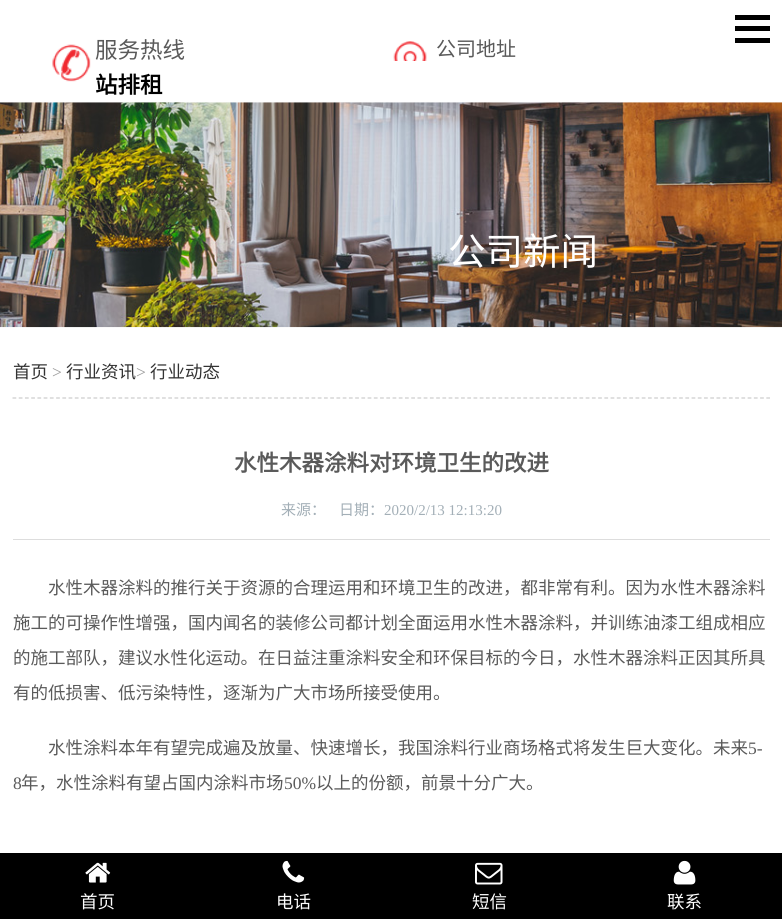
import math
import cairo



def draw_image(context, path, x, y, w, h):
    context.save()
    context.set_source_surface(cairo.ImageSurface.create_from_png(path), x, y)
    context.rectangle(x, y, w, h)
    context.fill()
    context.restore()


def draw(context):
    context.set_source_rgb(1, 1, 1)
    context.paint()
    context.set_source_rgb(0, 0, 0)
    context.rectangle(735, 26, 35, 5)
    context.fill()
    context.rectangle(735, 15, 35, 5)
    context.fill()
    context.rectangle(735, 38, 35, 5)
    context.fill()
    draw_image(context, "images/1.png", 52, 44, 39, 38)
    draw_image(context, "images/2.png", 393, 41, 34, 20)
    draw_image(context, "images/3.png", 0, 102, 782, 226)
    context.new_path()
    context.move_to(12.5, 398)
    context.line_to(770, 398)
    context.set_source_rgb(204 / 255, 204 / 255, 204 / 255)
    context.set_line_width(1.2)
    context.set_dash([3.75, 2.48])
    context.stroke()
    context.set_source_rgb(221 / 255, 221 / 255, 221 / 255)
    context.rectangle(13, 539, 757, 1)
    context.fill()
    context.set_source_rgb(0, 0, 0)
    context.rectangle(0, 853, 782, 66)
    context.fill()
    draw_image(context, "images/4.png", 85, 862, 26, 21)
    draw_image(context, "images/5.png", 282, 860, 23, 23)
    draw_image(context, "images/6.png", 475, 862, 28, 23)
    draw_image(context, "images/7.png", 673, 860, 23, 25)
    context.select_font_face("Noto Sans CJK SC")
    context.set_font_size(22.5)
    context.set_source_rgb(90 / 255, 90 / 255, 90 / 255)
    context.move_to(95, 58)
    context.show_text("服务热线")
    context.select_font_face("Noto Sans CJK SC", cairo.FontSlant.NORMAL, cairo.FontWeight.BOLD)
    context.set_source_rgb(0, 0, 0)
    context.move_to(95, 93)
    context.show_text("站排租")
    context.select_font_face("Noto Sans CJK SC")
    context.set_font_size(20)
    context.set_source_rgb(90 / 255, 90 / 255, 90 / 255)
    context.move_to(436, 56)
    context.show_text("公司地址")
    context.set_font_size(37.5)
    context.set_source_rgb(1, 1, 1)
    context.move_to(448, 265)
    context.show_text("公司新闻")
    context.set_font_size(17.5)
    context.set_source_rgb(51 / 255, 51 / 255, 51 / 255)
    context.move_to(13, 378)
    context.show_text("首页")
    context.select_font_face("Liberation Serif")
    context.set_source_rgb(153 / 255, 153 / 255, 153 / 255)
    context.move_to(52, 378)
    context.show_text(">")
    context.select_font_face("Noto Sans CJK SC")
    context.set_source_rgb(51 / 255, 51 / 255, 51 / 255)
    context.move_to(66, 378)
    context.show_text("行业资讯")
    context.select_font_face("Liberation Serif")
    context.set_source_rgb(153 / 255, 153 / 255, 153 / 255)
    context.move_to(136, 378)
    context.show_text(">")
    context.select_font_face("Noto Sans CJK SC")
    context.set_source_rgb(51 / 255, 51 / 255, 51 / 255)
    context.move_to(150, 378)
    context.show_text("行业动态")
    context.select_font_face("Noto Sans CJK SC", cairo.FontSlant.NORMAL, cairo.FontWeight.BOLD)
    context.set_font_size(22.5)
    context.set_source_rgb(90 / 255, 90 / 255, 90 / 255)
    context.move_to(234, 471)
    context.show_text("水性木器涂料对环境卫生的改进")
    context.select_font_face("Noto Sans CJK SC")
    context.set_font_size(15)
    context.set_source_rgb(163 / 255, 175 / 255, 183 / 255)
    context.move_to(281, 515)
    context.show_text("来源：")
    context.move_to(339, 515)
    context.show_text("日期：")
    context.select_font_face("Liberation Serif")
    context.move_to(384, 515)
    context.show_text("2020/2/13 12:13:20")
    context.select_font_face("Noto Sans CJK SC")
    context.set_font_size(17.5)
    context.set_source_rgb(90 / 255, 90 / 255, 90 / 255)
    context.move_to(48, 594)
    context.show_text("水性木器涂料的推行关于资源的合理运用和环境卫生的改进，都非常有利。因为水性木器涂料")
    context.move_to(13, 629)
    context.show_text("施工的可操作性增强，国内闻名的装修公司都计划全面运用水性木器涂料，并训练油漆工组成相应")
    context.move_to(13, 664)
    context.show_text("的施工部队，建议水性化运动。在日益注重涂料安全和环保目标的今日，水性木器涂料正因其所具")
    context.move_to(13, 699)
    context.show_text("有的低损害、低污染特性，逐渐为广大市场所接受使用。")
    context.move_to(48, 754)
    context.show_text("水性涂料本年有望完成遍及放量、快速增长，我国涂料行业商场格式将发生巨大变化。未来")
    context.select_font_face("Liberation Serif")
    context.move_to(748, 754)
    context.show_text("5-")
    context.move_to(13, 789)
    context.show_text("8")
    context.select_font_face("Noto Sans CJK SC")
    context.move_to(21, 789)
    context.show_text("年，水性涂料有望占国内涂料市场")
    context.select_font_face("Liberation Serif")
    context.move_to(284, 789)
    context.show_text("50%")
    context.select_font_face("Noto Sans CJK SC")
    context.move_to(316, 789)
    context.show_text("以上的份额，前景十分广大。")
    context.set_source_rgb(1, 1, 1)
    context.move_to(80, 908)
    context.show_text("首页")
    context.move_to(276, 908)
    context.show_text("电话")
    context.move_to(472, 908)
    context.show_text("短信")
    context.move_to(667, 908)
    context.show_text("联系")


surface = cairo.ImageSurface(cairo.Format.RGB24, 782, 919)
context = cairo.Context(surface)
options = cairo.FontOptions()
options.set_hint_metrics(cairo.HintMetrics.OFF)
options.set_hint_style(cairo.HintStyle.NONE)
context.set_font_options(options)
context.set_miter_limit(4)
draw(context)
surface.write_to_png("out.png")
